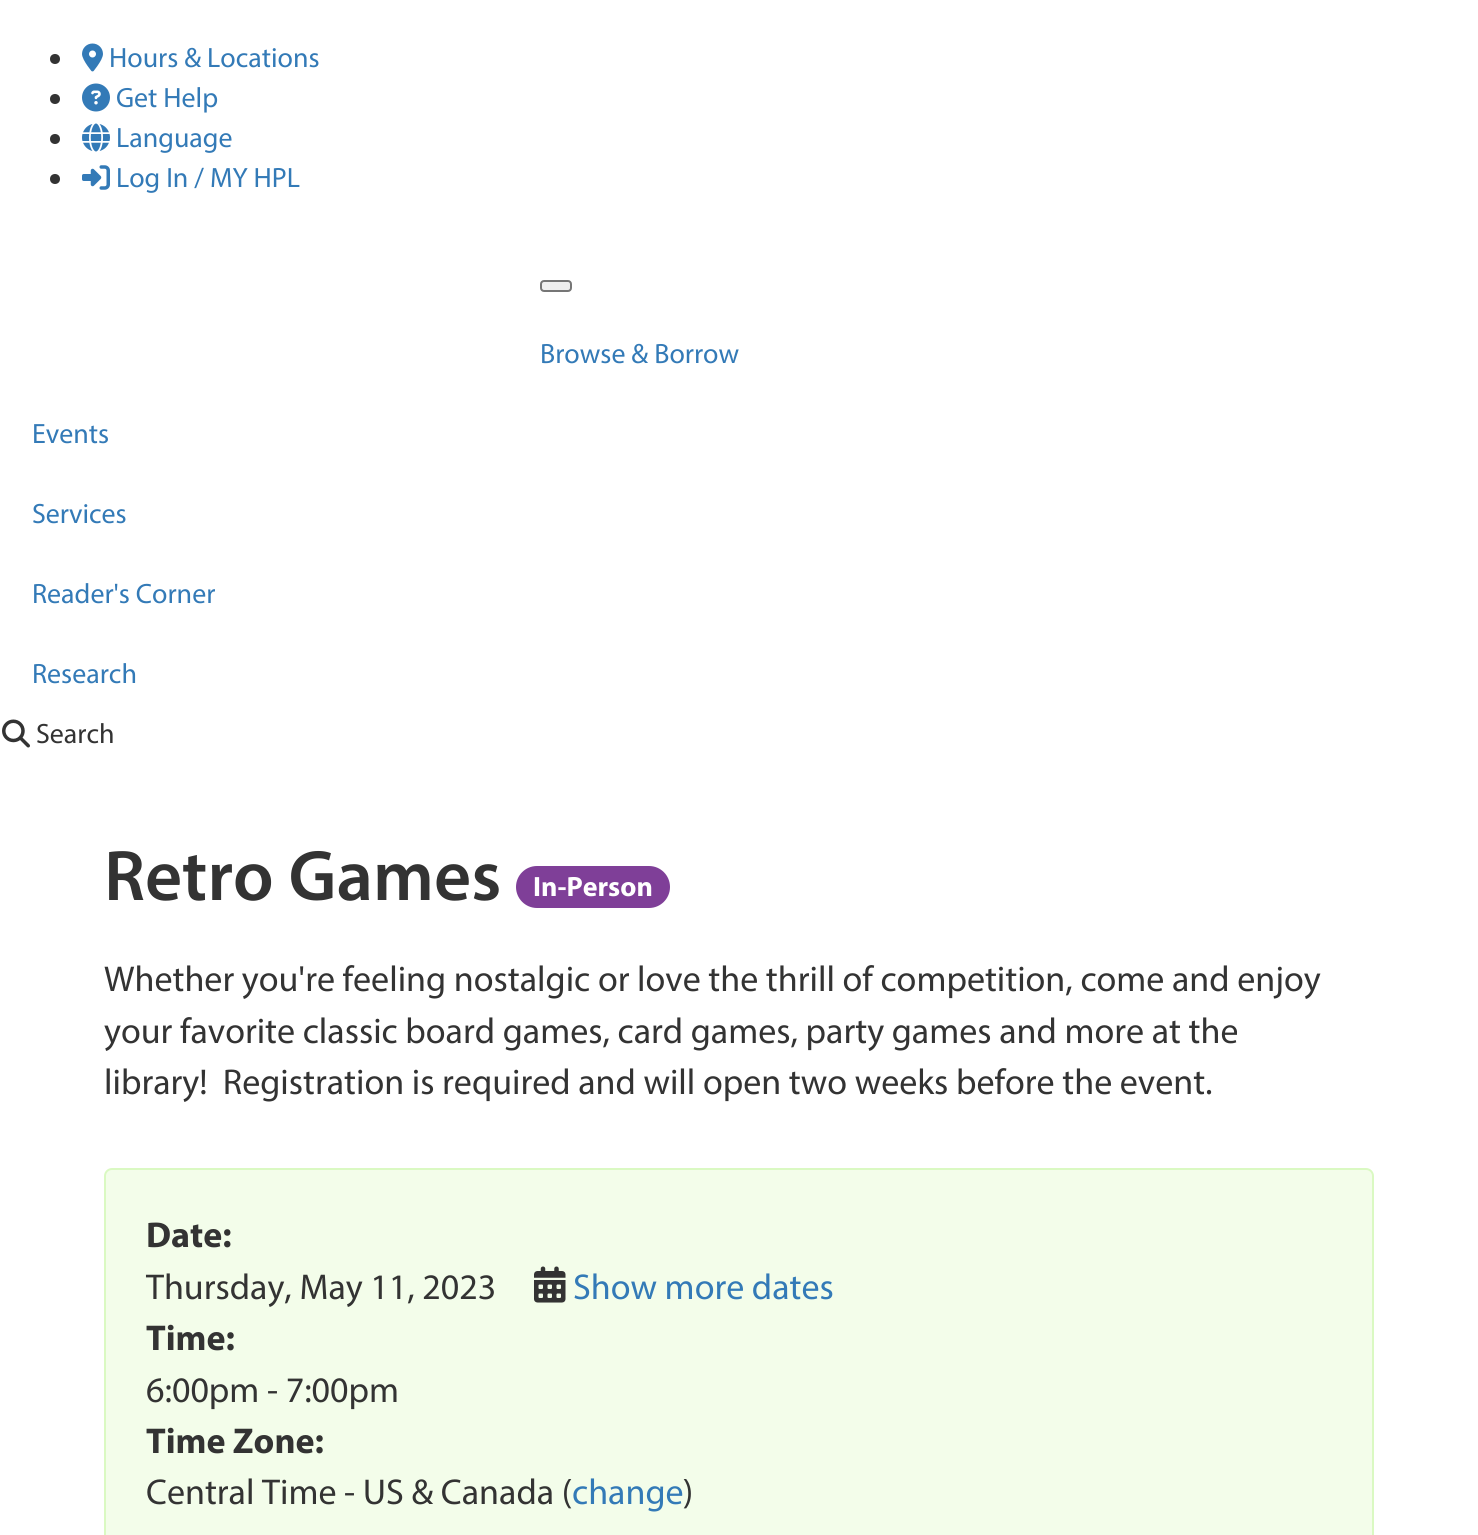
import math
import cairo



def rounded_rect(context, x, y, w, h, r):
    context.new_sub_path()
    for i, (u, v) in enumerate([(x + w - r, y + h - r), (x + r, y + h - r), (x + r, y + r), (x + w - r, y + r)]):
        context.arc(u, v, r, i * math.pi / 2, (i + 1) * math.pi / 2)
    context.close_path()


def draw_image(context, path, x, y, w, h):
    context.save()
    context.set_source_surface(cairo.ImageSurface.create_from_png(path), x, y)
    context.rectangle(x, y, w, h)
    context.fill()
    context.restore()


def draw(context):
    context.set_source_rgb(1, 1, 1)
    context.paint()
    context.set_source_rgb(51 / 255, 51 / 255, 51 / 255)
    context.arc(55, 59, 5, 0, 2 * math.pi)
    context.fill()
    draw_image(context, "images/1.png", 82, 43, 21, 29)
    context.arc(55, 99, 5, 0, 2 * math.pi)
    context.fill()
    draw_image(context, "images/2.png", 82, 83, 28, 29)
    context.arc(55, 139, 5, 0, 2 * math.pi)
    context.fill()
    draw_image(context, "images/3.png", 82, 123, 28, 29)
    context.arc(55, 179, 5, 0, 2 * math.pi)
    context.fill()
    draw_image(context, "images/4.png", 82, 165, 28, 25)
    context.set_source_rgb(239 / 255, 239 / 255, 239 / 255)
    rounded_rect(context, 541, 281, 30, 10, 3)
    context.fill_preserve()
    context.set_source_rgb(118 / 255, 118 / 255, 118 / 255)
    context.stroke()
    draw_image(context, "images/5.png", 2, 719, 28, 29)
    context.set_source_rgb(127 / 255, 63 / 255, 152 / 255)
    rounded_rect(context, 516, 866, 154, 42, 21)
    context.fill()
    context.set_source_rgb(243 / 255, 253 / 255, 234 / 255)
    rounded_rect(context, 105, 1169, 1268, 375, 7)
    context.fill_preserve()
    context.set_source_rgb(218 / 255, 249 / 255, 194 / 255)
    context.stroke()
    draw_image(context, "images/6.png", 534, 1266, 32, 37)
    context.select_font_face("Myriad")
    context.set_font_size(28)
    context.set_source_rgb(51 / 255, 122 / 255, 183 / 255)
    context.move_to(109, 67)
    context.show_text("Hours & Locations")
    context.move_to(116, 107)
    context.show_text("Get Help")
    context.move_to(116, 147)
    context.show_text("Language")
    context.move_to(116, 187)
    context.show_text("Log In / MY HPL")
    context.move_to(540, 363)
    context.show_text("Browse & Borrow")
    context.move_to(32, 443)
    context.show_text("Events")
    context.move_to(32, 523)
    context.show_text("Services")
    context.move_to(32, 603)
    context.show_text("Reader's Corner")
    context.move_to(32, 683)
    context.show_text("Research")
    context.set_source_rgb(51 / 255, 51 / 255, 51 / 255)
    context.move_to(36, 743)
    context.show_text("Search")
    context.select_font_face("Myriad SemiBold")
    context.set_font_size(72)
    context.move_to(104, 900)
    context.show_text("Retro Games")
    context.select_font_face("Myriad", cairo.FontSlant.NORMAL, cairo.FontWeight.BOLD)
    context.set_font_size(28)
    context.set_source_rgb(1, 1, 1)
    context.move_to(533, 896)
    context.show_text("In-Person")
    context.select_font_face("Myriad")
    context.set_font_size(36)
    context.set_source_rgb(51 / 255, 51 / 255, 51 / 255)
    context.move_to(104, 991)
    context.show_text("Whether you're feeling nostalgic or love the thrill of competition, come and enjoy")
    context.move_to(104, 1043)
    context.show_text("your favorite classic board games, card games, party games and more at the")
    context.move_to(104, 1094)
    context.show_text("library!  Registration is required and will open two weeks before the event.")
    context.select_font_face("Myriad", cairo.FontSlant.NORMAL, cairo.FontWeight.BOLD)
    context.move_to(146, 1247)
    context.show_text("Date:")
    context.select_font_face("Myriad")
    context.move_to(146, 1299)
    context.show_text("Thursday, May 11, 2023")
    context.set_source_rgb(51 / 255, 122 / 255, 183 / 255)
    context.move_to(573, 1299)
    context.show_text("Show more dates")
    context.select_font_face("Myriad", cairo.FontSlant.NORMAL, cairo.FontWeight.BOLD)
    context.set_source_rgb(51 / 255, 51 / 255, 51 / 255)
    context.move_to(146, 1350)
    context.show_text("Time:")
    context.select_font_face("Myriad")
    context.move_to(146, 1402)
    context.show_text("6:00pm - 7:00pm")
    context.select_font_face("Myriad", cairo.FontSlant.NORMAL, cairo.FontWeight.BOLD)
    context.move_to(146, 1453)
    context.show_text("Time Zone:")
    context.select_font_face("Myriad")
    context.move_to(146, 1504)
    context.show_text("Central Time - US & Canada (")
    context.set_source_rgb(51 / 255, 122 / 255, 183 / 255)
    context.move_to(572, 1504)
    context.show_text("change")
    context.set_source_rgb(51 / 255, 51 / 255, 51 / 255)
    context.move_to(683, 1504)
    context.show_text(")")


surface = cairo.ImageSurface(cairo.Format.RGB24, 1478, 1535)
context = cairo.Context(surface)
options = cairo.FontOptions()
options.set_hint_metrics(cairo.HintMetrics.OFF)
options.set_hint_style(cairo.HintStyle.NONE)
context.set_font_options(options)
context.set_miter_limit(4)
draw(context)
surface.write_to_png("out.png")
